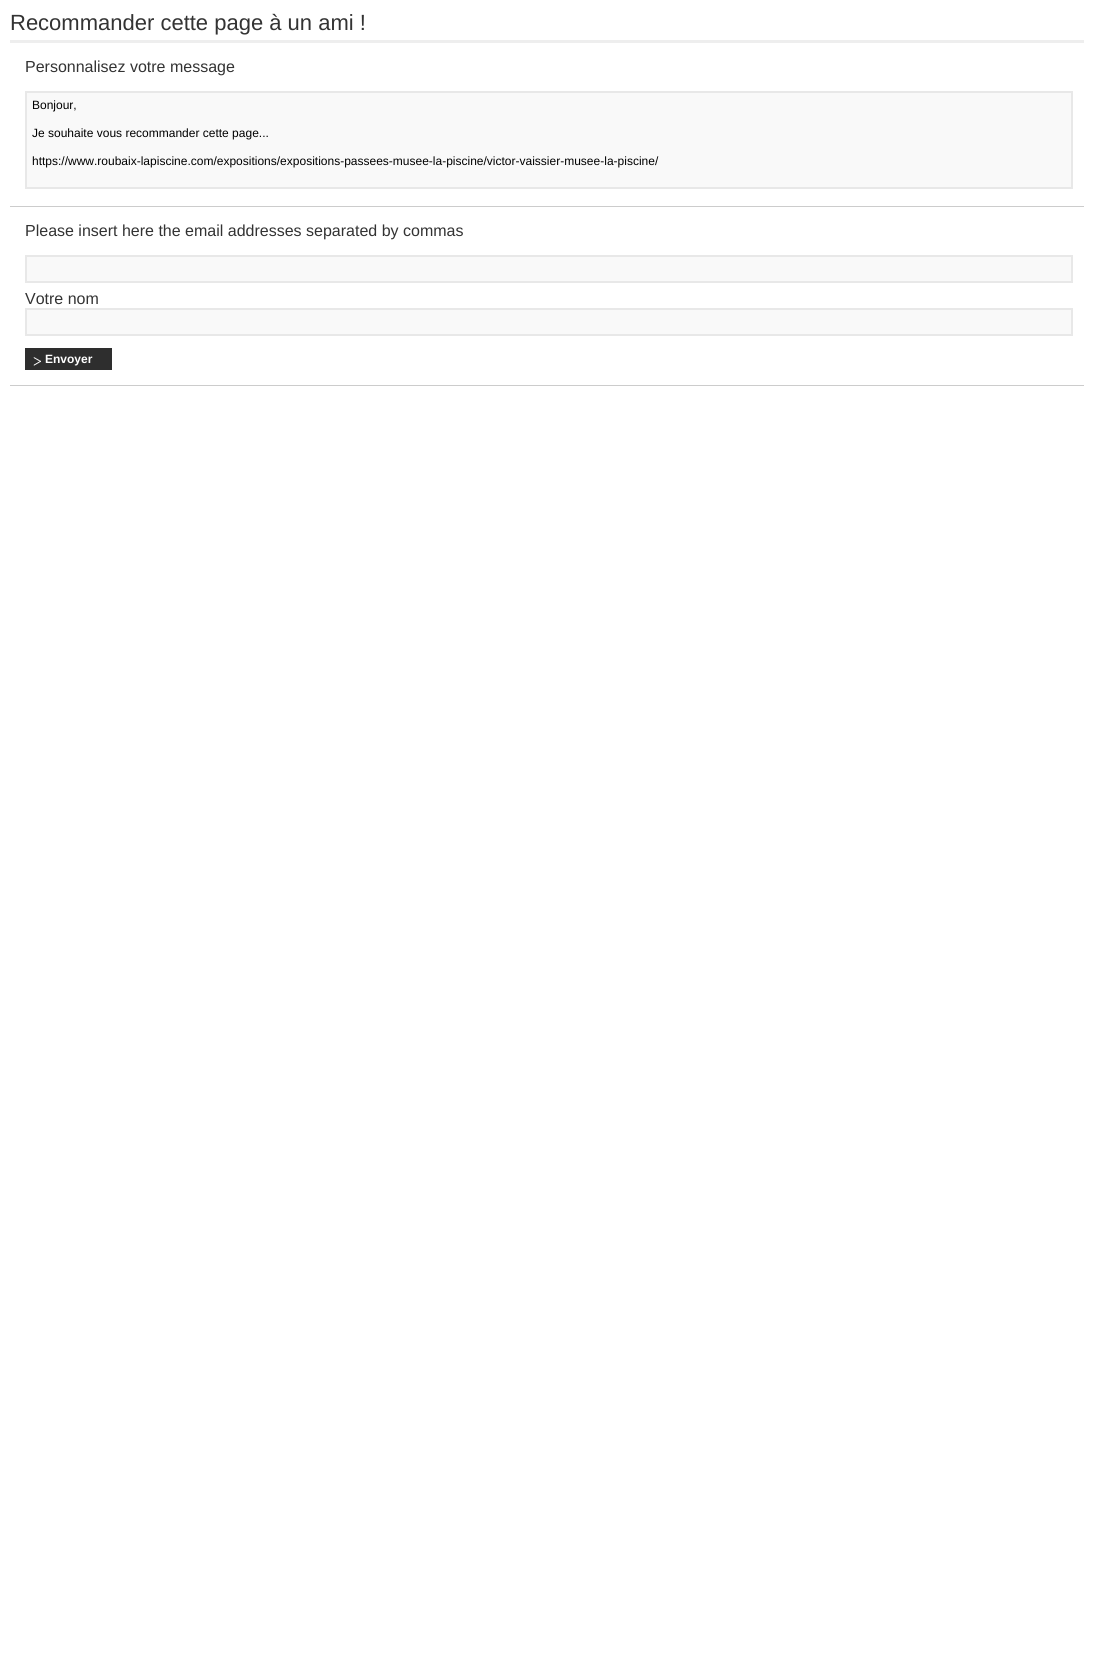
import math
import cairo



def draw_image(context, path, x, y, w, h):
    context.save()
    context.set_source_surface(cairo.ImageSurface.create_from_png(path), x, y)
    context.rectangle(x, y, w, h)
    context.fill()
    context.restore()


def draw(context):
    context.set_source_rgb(1, 1, 1)
    context.paint()
    context.set_source_rgb(238 / 255, 238 / 255, 238 / 255)
    context.rectangle(10, 40, 1074, 3)
    context.fill()
    context.set_source_rgb(204 / 255, 204 / 255, 204 / 255)
    context.rectangle(10, 206, 1074, 1)
    context.fill()
    context.set_source_rgb(249 / 255, 249 / 255, 249 / 255)
    context.rectangle(26, 92, 1046, 96)
    context.fill_preserve()
    context.set_source_rgb(232 / 255, 232 / 255, 232 / 255)
    context.stroke()
    context.set_source_rgb(204 / 255, 204 / 255, 204 / 255)
    context.rectangle(10, 385, 1074, 1)
    context.fill()
    context.set_source_rgb(249 / 255, 249 / 255, 249 / 255)
    context.rectangle(26, 256, 1046, 26)
    context.fill_preserve()
    context.set_source_rgb(232 / 255, 232 / 255, 232 / 255)
    context.stroke()
    context.set_source_rgb(249 / 255, 249 / 255, 249 / 255)
    context.rectangle(26, 309, 1046, 26)
    context.fill_preserve()
    context.set_source_rgb(232 / 255, 232 / 255, 232 / 255)
    context.stroke()
    context.set_source_rgb(46 / 255, 46 / 255, 46 / 255)
    context.rectangle(25, 348, 87, 22)
    context.fill()
    draw_image(context, "images/1.png", 33, 357, 8, 9)
    context.select_font_face("Liberation Sans")
    context.set_font_size(22)
    context.set_source_rgb(51 / 255, 51 / 255, 51 / 255)
    context.move_to(10, 30)
    context.show_text("Recommander cette page à un ami !")
    context.set_font_size(16)
    context.move_to(25, 72)
    context.show_text("Personnalisez votre message")
    context.set_font_size(12)
    context.set_source_rgb(0, 0, 0)
    context.move_to(32, 109)
    context.show_text("Bonjour,")
    context.move_to(32, 137)
    context.show_text("Je souhaite vous recommander cette page...")
    context.move_to(32, 165)
    context.show_text("https://www.roubaix-lapiscine.com/expositions/expositions-passees-musee-la-piscine/victor-vaissier-musee-la-piscine/")
    context.set_font_size(16)
    context.set_source_rgb(51 / 255, 51 / 255, 51 / 255)
    context.move_to(25, 236)
    context.show_text("Please insert here the email addresses separated by commas")
    context.move_to(25, 304)
    context.show_text("Votre nom")
    context.select_font_face("Liberation Sans", cairo.FontSlant.NORMAL, cairo.FontWeight.BOLD)
    context.set_font_size(12)
    context.set_source_rgb(1, 1, 1)
    context.move_to(45, 363)
    context.show_text("Envoyer")


surface = cairo.ImageSurface(cairo.Format.RGB24, 1094, 1656)
context = cairo.Context(surface)
options = cairo.FontOptions()
options.set_hint_metrics(cairo.HintMetrics.OFF)
options.set_hint_style(cairo.HintStyle.NONE)
context.set_font_options(options)
context.set_miter_limit(4)
draw(context)
surface.write_to_png("out.png")
